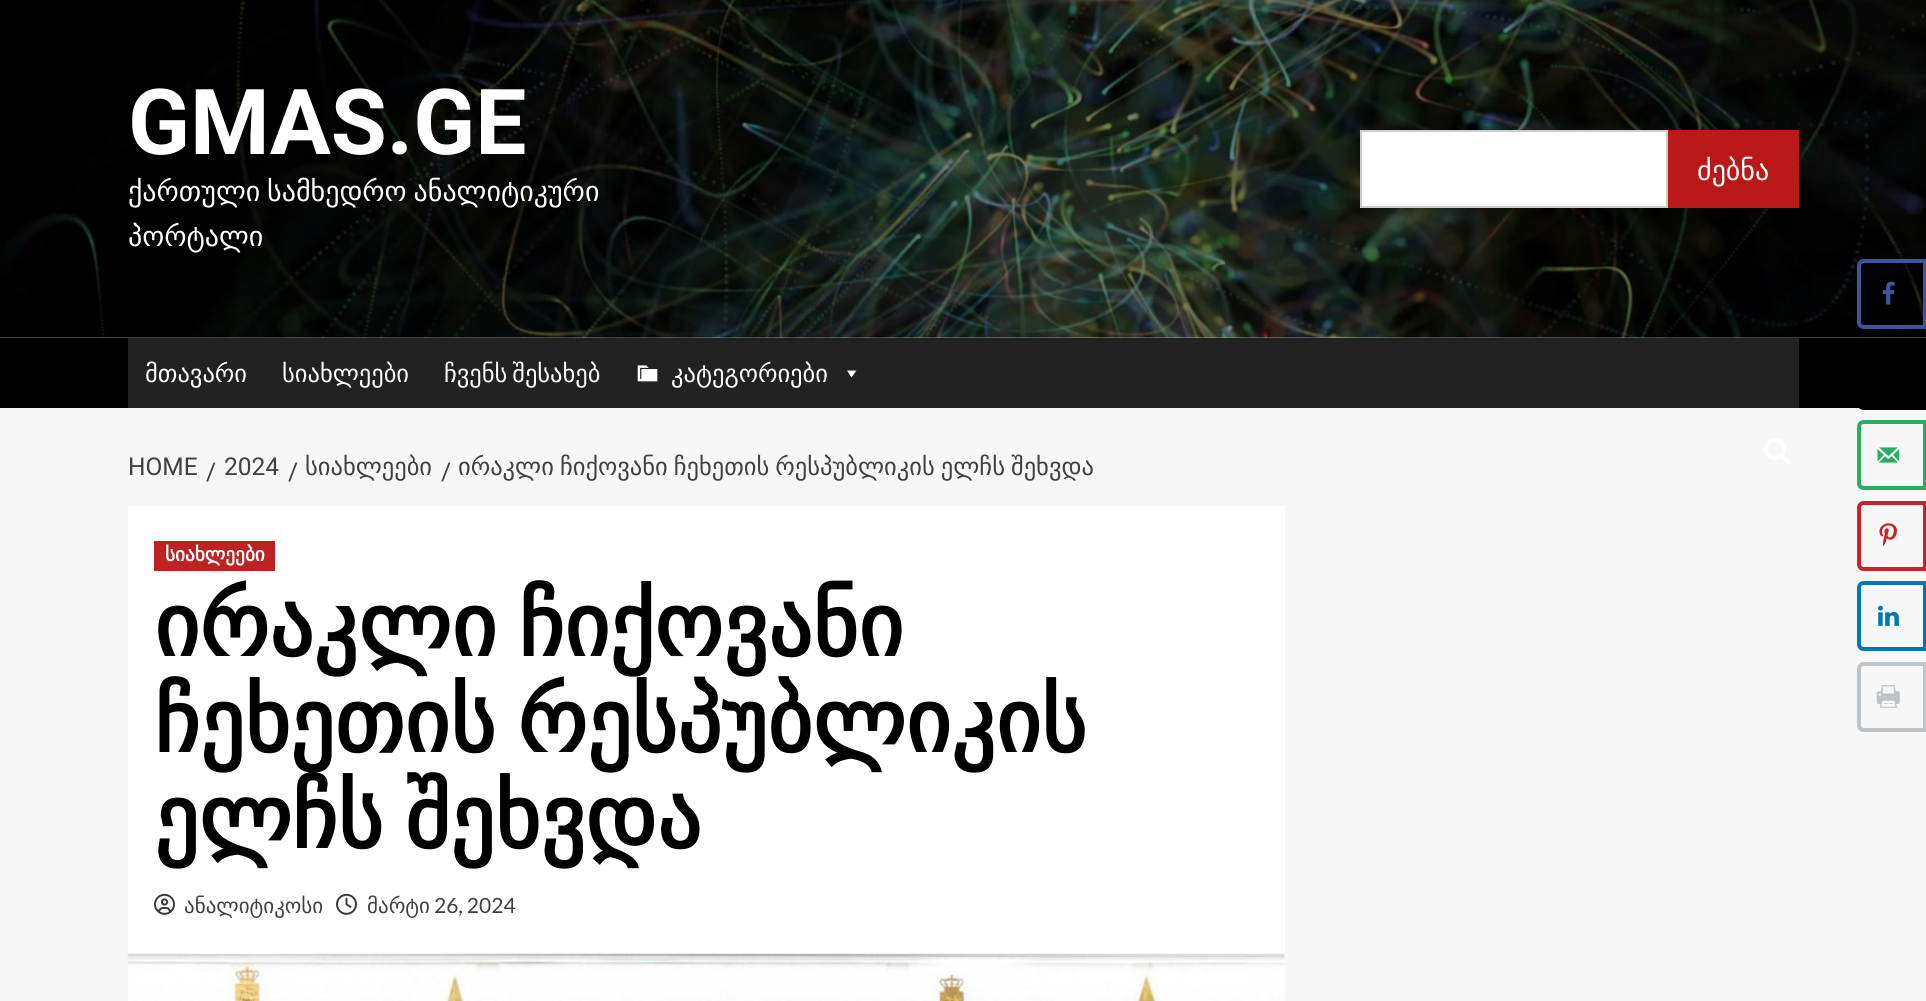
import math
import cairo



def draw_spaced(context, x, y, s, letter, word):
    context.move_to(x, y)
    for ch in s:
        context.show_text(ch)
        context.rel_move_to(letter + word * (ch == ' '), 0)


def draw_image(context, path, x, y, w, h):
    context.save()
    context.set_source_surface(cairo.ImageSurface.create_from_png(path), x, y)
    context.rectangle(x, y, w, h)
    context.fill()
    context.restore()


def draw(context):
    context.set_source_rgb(247 / 255, 247 / 255, 247 / 255)
    context.paint()
    draw_image(context, "images/1.png", 0, 0, 1926, 338)
    context.set_source_rgb(1, 1, 1)
    context.rectangle(1361, 131, 306, 76)
    context.fill_preserve()
    context.set_source_rgb(204 / 255, 204 / 255, 204 / 255)
    context.stroke()
    context.set_source_rgb(187 / 255, 25 / 255, 25 / 255)
    context.rectangle(1668, 130, 131, 78)
    context.fill()
    context.set_source_rgb(0, 0, 0)
    context.rectangle(0, 338, 1926, 70)
    context.fill()
    context.set_source_rgb(34 / 255, 34 / 255, 34 / 255)
    context.rectangle(128, 338, 1671, 70)
    context.fill()
    draw_image(context, "images/2.png", 637, 365, 21, 17)
    context.set_source_rgb(1, 1, 1)
    context.new_path()
    context.move_to(856.5, 370.5)
    context.line_to(851.5, 377.5)
    context.line_to(847, 370.5)
    context.close_path()
    context.fill()
    draw_image(context, "images/3.png", 1764, 438, 26, 26)
    context.rectangle(128, 506, 1157, 495)
    context.fill()
    context.set_source_rgb(190 / 255, 34 / 255, 34 / 255)
    context.rectangle(154, 541, 121, 30)
    context.fill()
    draw_image(context, "images/4.png", 154, 893, 21, 22)
    draw_image(context, "images/5.png", 336, 893, 21, 22)
    draw_image(context, "images/6.png", 127, 953, 1158, 48)
    context.new_path()
    context.move_to(1864, 261)
    context.line_to(1925, 261)
    context.line_to(1925, 327)
    context.line_to(1864, 327)
    context.curve_to(1861, 327, 1859, 325, 1859, 322)
    context.line_to(1859, 266)
    context.curve_to(1859, 263, 1861, 261, 1864, 261)
    context.close_path()
    context.set_source_rgb(58 / 255, 87 / 255, 154 / 255)
    context.set_line_width(4)
    context.stroke()
    draw_image(context, "images/7.png", 1882, 281, 13, 24)
    context.new_path()
    context.move_to(1864, 342)
    context.line_to(1925, 342)
    context.line_to(1925, 408)
    context.line_to(1864, 408)
    context.curve_to(1861, 408, 1859, 406, 1859, 403)
    context.line_to(1859, 347)
    context.curve_to(1859, 344, 1861, 342, 1864, 342)
    context.close_path()
    context.set_source_rgb(0, 0, 0)
    context.stroke()
    context.new_path()
    context.move_to(1864, 422)
    context.line_to(1925, 422)
    context.line_to(1925, 488)
    context.line_to(1864, 488)
    context.curve_to(1861, 488, 1859, 486, 1859, 483)
    context.line_to(1859, 427)
    context.curve_to(1859, 424, 1861, 422, 1864, 422)
    context.close_path()
    context.set_source_rgb(39 / 255, 174 / 255, 96 / 255)
    context.stroke()
    draw_image(context, "images/8.png", 1877, 447, 23, 16)
    context.new_path()
    context.move_to(1864, 503)
    context.line_to(1925, 503)
    context.line_to(1925, 569)
    context.line_to(1864, 569)
    context.curve_to(1861, 569, 1859, 567, 1859, 564)
    context.line_to(1859, 508)
    context.curve_to(1859, 505, 1861, 503, 1864, 503)
    context.close_path()
    context.set_source_rgb(201 / 255, 34 / 255, 40 / 255)
    context.stroke()
    draw_image(context, "images/9.png", 1879, 523, 18, 23)
    context.new_path()
    context.move_to(1864, 583)
    context.line_to(1925, 583)
    context.line_to(1925, 649)
    context.line_to(1864, 649)
    context.curve_to(1861, 649, 1859, 647, 1859, 644)
    context.line_to(1859, 588)
    context.curve_to(1859, 585, 1861, 583, 1864, 583)
    context.close_path()
    context.set_source_rgb(0, 119 / 255, 181 / 255)
    context.stroke()
    draw_image(context, "images/10.png", 1877, 605, 22, 21)
    context.new_path()
    context.move_to(1864, 664)
    context.line_to(1925, 664)
    context.line_to(1925, 730)
    context.line_to(1864, 730)
    context.curve_to(1861, 730, 1859, 728, 1859, 725)
    context.line_to(1859, 669)
    context.curve_to(1859, 666, 1861, 664, 1864, 664)
    context.close_path()
    context.set_source_rgb(189 / 255, 195 / 255, 199 / 255)
    context.stroke()
    draw_image(context, "images/11.png", 1876, 685, 24, 23)
    context.select_font_face("Roboto", cairo.FontSlant.NORMAL, cairo.FontWeight.BOLD)
    context.set_font_size(91)
    context.set_source_rgb(1, 1, 1)
    context.move_to(128, 154)
    context.show_text("GMAS.GE")
    context.select_font_face("DejaVu Sans")
    context.set_font_size(28)
    draw_spaced(context, 128, 201, "ქართული სამხედრო ანალიტიკური", 0, -2)
    context.move_to(128, 246)
    context.show_text("პორტალი")
    context.move_to(1697, 180)
    context.show_text("ძებნა")
    context.set_font_size(24.5)
    context.move_to(145, 382)
    context.show_text("მთავარი")
    context.move_to(282, 382)
    context.show_text("სიახლეები")
    draw_spaced(context, 444, 382, "ჩვენს შესახებ", 0, -3)
    context.move_to(671, 382)
    context.show_text("კატეგორიები")
    context.select_font_face("Roboto")
    context.set_source_rgb(64 / 255, 64 / 255, 64 / 255)
    context.move_to(128, 475)
    context.show_text("HOME")
    context.move_to(206, 480)
    context.show_text("/")
    context.move_to(224, 475)
    context.show_text("2024")
    context.move_to(288, 480)
    context.show_text("/")
    context.select_font_face("DejaVu Sans")
    context.move_to(305, 475)
    context.show_text("სიახლეები")
    context.select_font_face("Roboto")
    context.move_to(441, 480)
    context.show_text("/")
    context.select_font_face("DejaVu Sans")
    draw_spaced(context, 458, 475, "ირაკლი ჩიქოვანი ჩეხეთის რესპუბლიკის ელჩს შეხვდა", 0, -1.75)
    context.select_font_face("DejaVu Sans", cairo.FontSlant.NORMAL, cairo.FontWeight.BOLD)
    context.set_font_size(19.25)
    context.set_source_rgb(1, 1, 1)
    context.move_to(165, 561)
    context.show_text("სიახლეები")
    context.set_font_size(87.5)
    context.set_source_rgb(0, 0, 0)
    draw_spaced(context, 154, 656, "ირაკლი ჩიქოვანი", 0, -6)
    draw_spaced(context, 154, 752, "ჩეხეთის რესპუბლიკის", 0, -6)
    draw_spaced(context, 154, 848, "ელჩს შეხვდა", 0, -6)
    context.select_font_face("DejaVu Sans")
    context.set_font_size(21)
    context.set_source_rgb(64 / 255, 64 / 255, 64 / 255)
    context.move_to(184, 913)
    context.show_text("ანალიტიკოსი")
    context.move_to(367, 913)
    context.show_text("მარტი")
    context.select_font_face("Lato")
    context.move_to(434, 913)
    context.show_text("26, 2024")


surface = cairo.ImageSurface(cairo.Format.RGB24, 1926, 1001)
context = cairo.Context(surface)
options = cairo.FontOptions()
options.set_hint_metrics(cairo.HintMetrics.OFF)
options.set_hint_style(cairo.HintStyle.NONE)
context.set_font_options(options)
context.set_miter_limit(4)
draw(context)
surface.write_to_png("out.png")
